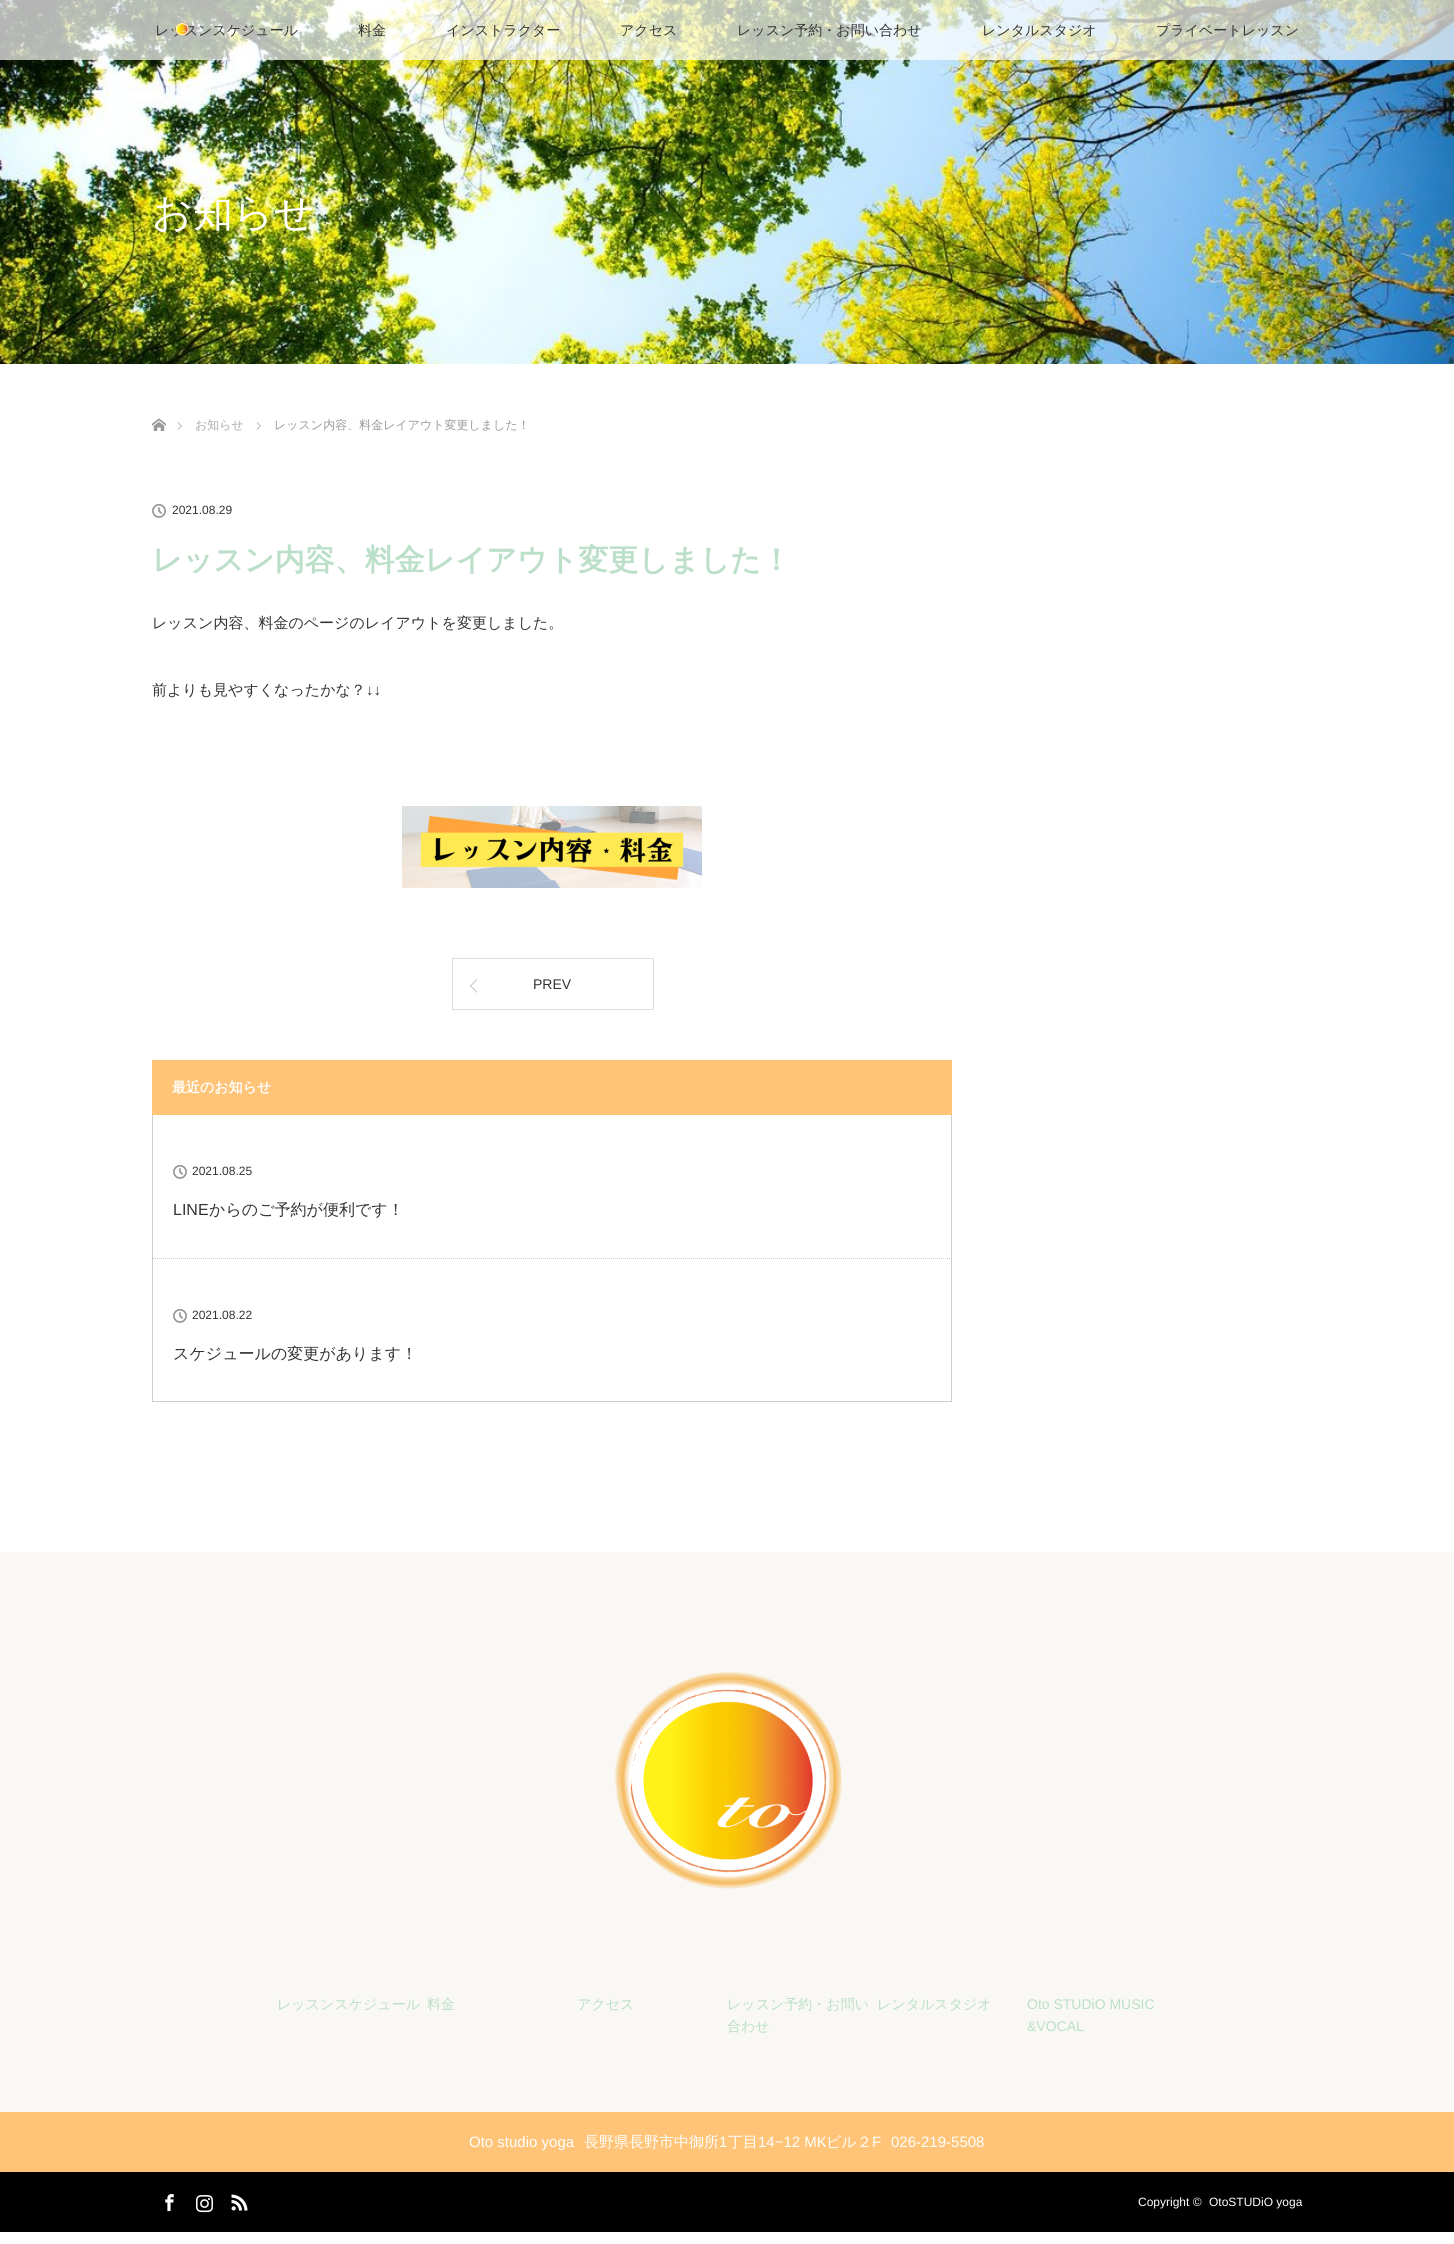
import math
import cairo



def draw_image(context, path, x, y, w, h):
    context.save()
    context.set_source_surface(cairo.ImageSurface.create_from_png(path), x, y)
    context.rectangle(x, y, w, h)
    context.fill()
    context.restore()


def draw(context):
    context.set_source_rgb(1, 1, 1)
    context.paint()
    draw_image(context, "images/2.png", 0, 0, 1454, 364)
    context.set_source_rgba(1, 1, 1, 0.7)
    context.rectangle(0, 0, 1454, 60)
    context.fill()
    draw_image(context, "images/3.png", 152, 418, 14, 13)
    draw_image(context, "images/4.png", 177, 422, 5, 8)
    draw_image(context, "images/4.png", 256, 422, 5, 8)
    draw_image(context, "images/5.png", 152, 503, 14, 15)
    draw_image(context, "images/6.png", 402, 806, 300, 82)
    context.rectangle(452.5, 958.5, 201, 51)
    context.set_source_rgb(221 / 255, 221 / 255, 221 / 255)
    context.set_line_width(1)
    context.stroke()
    draw_image(context, "images/7.png", 470, 979, 8, 14)
    context.set_source_rgb(1, 196 / 255, 120 / 255)
    context.rectangle(152, 1060, 800, 55)
    context.fill()
    context.set_source_rgb(204 / 255, 204 / 255, 204 / 255)
    context.rectangle(951, 1115, 1, 287)
    context.fill()
    context.rectangle(152, 1401, 800, 1)
    context.fill()
    context.rectangle(152, 1115, 1, 287)
    context.fill()
    context.new_path()
    context.move_to(153, 1258.5)
    context.line_to(951, 1258.5)
    context.set_dash([1, 1])
    context.stroke()
    draw_image(context, "images/5.png", 173, 1164, 14, 15)
    draw_image(context, "images/5.png", 173, 1308, 14, 15)
    context.set_source_rgb(249 / 255, 248 / 255, 244 / 255)
    context.rectangle(0, 1552, 1454, 560)
    context.fill()
    draw_image(context, "images/8.png", 614, 1671, 228, 218)
    context.set_source_rgb(1, 196 / 255, 120 / 255)
    context.rectangle(0, 2112, 1454, 60)
    context.fill()
    context.set_source_rgb(0, 0, 0)
    context.rectangle(0, 2172, 1454, 60)
    context.fill()
    draw_image(context, "images/9.png", 165, 2194, 9, 18)
    draw_image(context, "images/10.png", 196, 2195, 17, 18)
    draw_image(context, "images/11.png", 231, 2194, 17, 17)
    context.select_font_face("WenQuanYi Zen Hei Medium")
    context.set_font_size(14)
    context.set_source_rgb(51 / 255, 51 / 255, 51 / 255)
    context.move_to(155, 35)
    context.show_text("レッスンスケジュール")
    draw_image(context, "images/1.png", 175, 22, 15, 14)
    context.move_to(358, 35)
    context.show_text("料金")
    context.move_to(446, 35)
    context.show_text("インストラクター")
    context.move_to(620, 35)
    context.show_text("アクセス")
    context.move_to(737, 35)
    context.show_text("レッスン予約・お問い合わせ")
    context.move_to(982, 35)
    context.show_text("レンタルスタジオ")
    context.move_to(1156, 35)
    context.show_text("プライベートレッスン")
    context.set_font_size(40)
    context.set_source_rgb(1, 1, 1)
    context.move_to(152, 226)
    context.show_text("お知らせ")
    context.set_font_size(12)
    context.set_source_rgb(170 / 255, 170 / 255, 170 / 255)
    context.move_to(195, 429)
    context.show_text("お知らせ")
    context.set_source_rgb(153 / 255, 153 / 255, 153 / 255)
    context.move_to(274, 429)
    context.show_text("レッスン内容、料金レイアウト変更しました！")
    context.select_font_face("Liberation Sans")
    context.set_source_rgb(51 / 255, 51 / 255, 51 / 255)
    context.move_to(172, 514)
    context.show_text("2021.08.29")
    context.select_font_face("WenQuanYi Zen Hei", cairo.FontSlant.NORMAL, cairo.FontWeight.BOLD)
    context.set_font_size(30)
    context.set_source_rgb(187 / 255, 223 / 255, 200 / 255)
    context.move_to(152, 570)
    context.show_text("レッスン内容、料金レイアウト変更しました！")
    context.select_font_face("WenQuanYi Zen Hei Medium")
    context.set_font_size(15)
    context.set_source_rgb(51 / 255, 51 / 255, 51 / 255)
    context.move_to(152, 628)
    context.show_text("レッスン内容、料金のページのレイアウトを変更しました。")
    context.move_to(152, 695)
    context.show_text("前よりも見やすくなったかな？")
    context.select_font_face("Liberation Sans")
    context.move_to(366, 695)
    context.show_text("↓↓")
    context.set_font_size(14)
    context.move_to(533, 989)
    context.show_text("PREV")
    context.select_font_face("WenQuanYi Zen Hei", cairo.FontSlant.NORMAL, cairo.FontWeight.BOLD)
    context.set_source_rgb(1, 1, 1)
    context.move_to(172, 1092)
    context.show_text("最近のお知らせ")
    context.select_font_face("Liberation Sans")
    context.set_font_size(12)
    context.set_source_rgb(51 / 255, 51 / 255, 51 / 255)
    context.move_to(192, 1175)
    context.show_text("2021.08.25")
    context.set_font_size(16)
    context.move_to(173, 1215)
    context.show_text("LINE")
    context.select_font_face("WenQuanYi Zen Hei Medium")
    context.move_to(209, 1215)
    context.show_text("からのご予約が便利です！")
    context.select_font_face("Liberation Sans")
    context.set_font_size(12)
    context.move_to(192, 1319)
    context.show_text("2021.08.22")
    context.select_font_face("WenQuanYi Zen Hei Medium")
    context.set_font_size(16)
    context.move_to(173, 1359)
    context.show_text("スケジュールの変更があります！")
    context.set_font_size(14)
    context.set_source_rgb(187 / 255, 223 / 255, 200 / 255)
    context.move_to(277, 2009)
    context.show_text("レッスンスケジュール")
    context.move_to(427, 2009)
    context.show_text("料金")
    context.move_to(577, 2009)
    context.show_text("アクセス")
    context.move_to(727, 2009)
    context.show_text("レッスン予約・お問い")
    context.move_to(727, 2031)
    context.show_text("合わせ")
    context.move_to(877, 2009)
    context.show_text("レンタルスタジオ")
    context.select_font_face("Liberation Sans")
    context.move_to(1027, 2009)
    context.show_text("Oto STUDiO MUSIC")
    context.move_to(1027, 2031)
    context.show_text("&VOCAL")
    context.set_font_size(15)
    context.set_source_rgb(1, 1, 1)
    context.move_to(469, 2147)
    context.show_text("Oto studio yoga")
    context.select_font_face("WenQuanYi Zen Hei Medium")
    context.move_to(584, 2147)
    context.show_text("長野県長野市中御所")
    context.select_font_face("Liberation Sans")
    context.move_to(719, 2147)
    context.show_text("1")
    context.select_font_face("WenQuanYi Zen Hei Medium")
    context.move_to(728, 2147)
    context.show_text("丁目")
    context.select_font_face("Liberation Sans")
    context.move_to(758, 2147)
    context.show_text("14−12 MK")
    context.select_font_face("WenQuanYi Zen Hei Medium")
    context.move_to(826, 2147)
    context.show_text("ビル２")
    context.select_font_face("Liberation Sans")
    context.move_to(872, 2147)
    context.show_text("F")
    context.move_to(891, 2147)
    context.show_text("026-219-5508")
    context.set_font_size(12)
    context.move_to(1138, 2206)
    context.show_text("Copyright ©")
    context.move_to(1209, 2206)
    context.show_text("OtoSTUDiO yoga")


surface = cairo.ImageSurface(cairo.Format.RGB24, 1454, 2244)
context = cairo.Context(surface)
options = cairo.FontOptions()
options.set_hint_metrics(cairo.HintMetrics.OFF)
options.set_hint_style(cairo.HintStyle.NONE)
context.set_font_options(options)
context.set_miter_limit(4)
draw(context)
surface.write_to_png("out.png")
